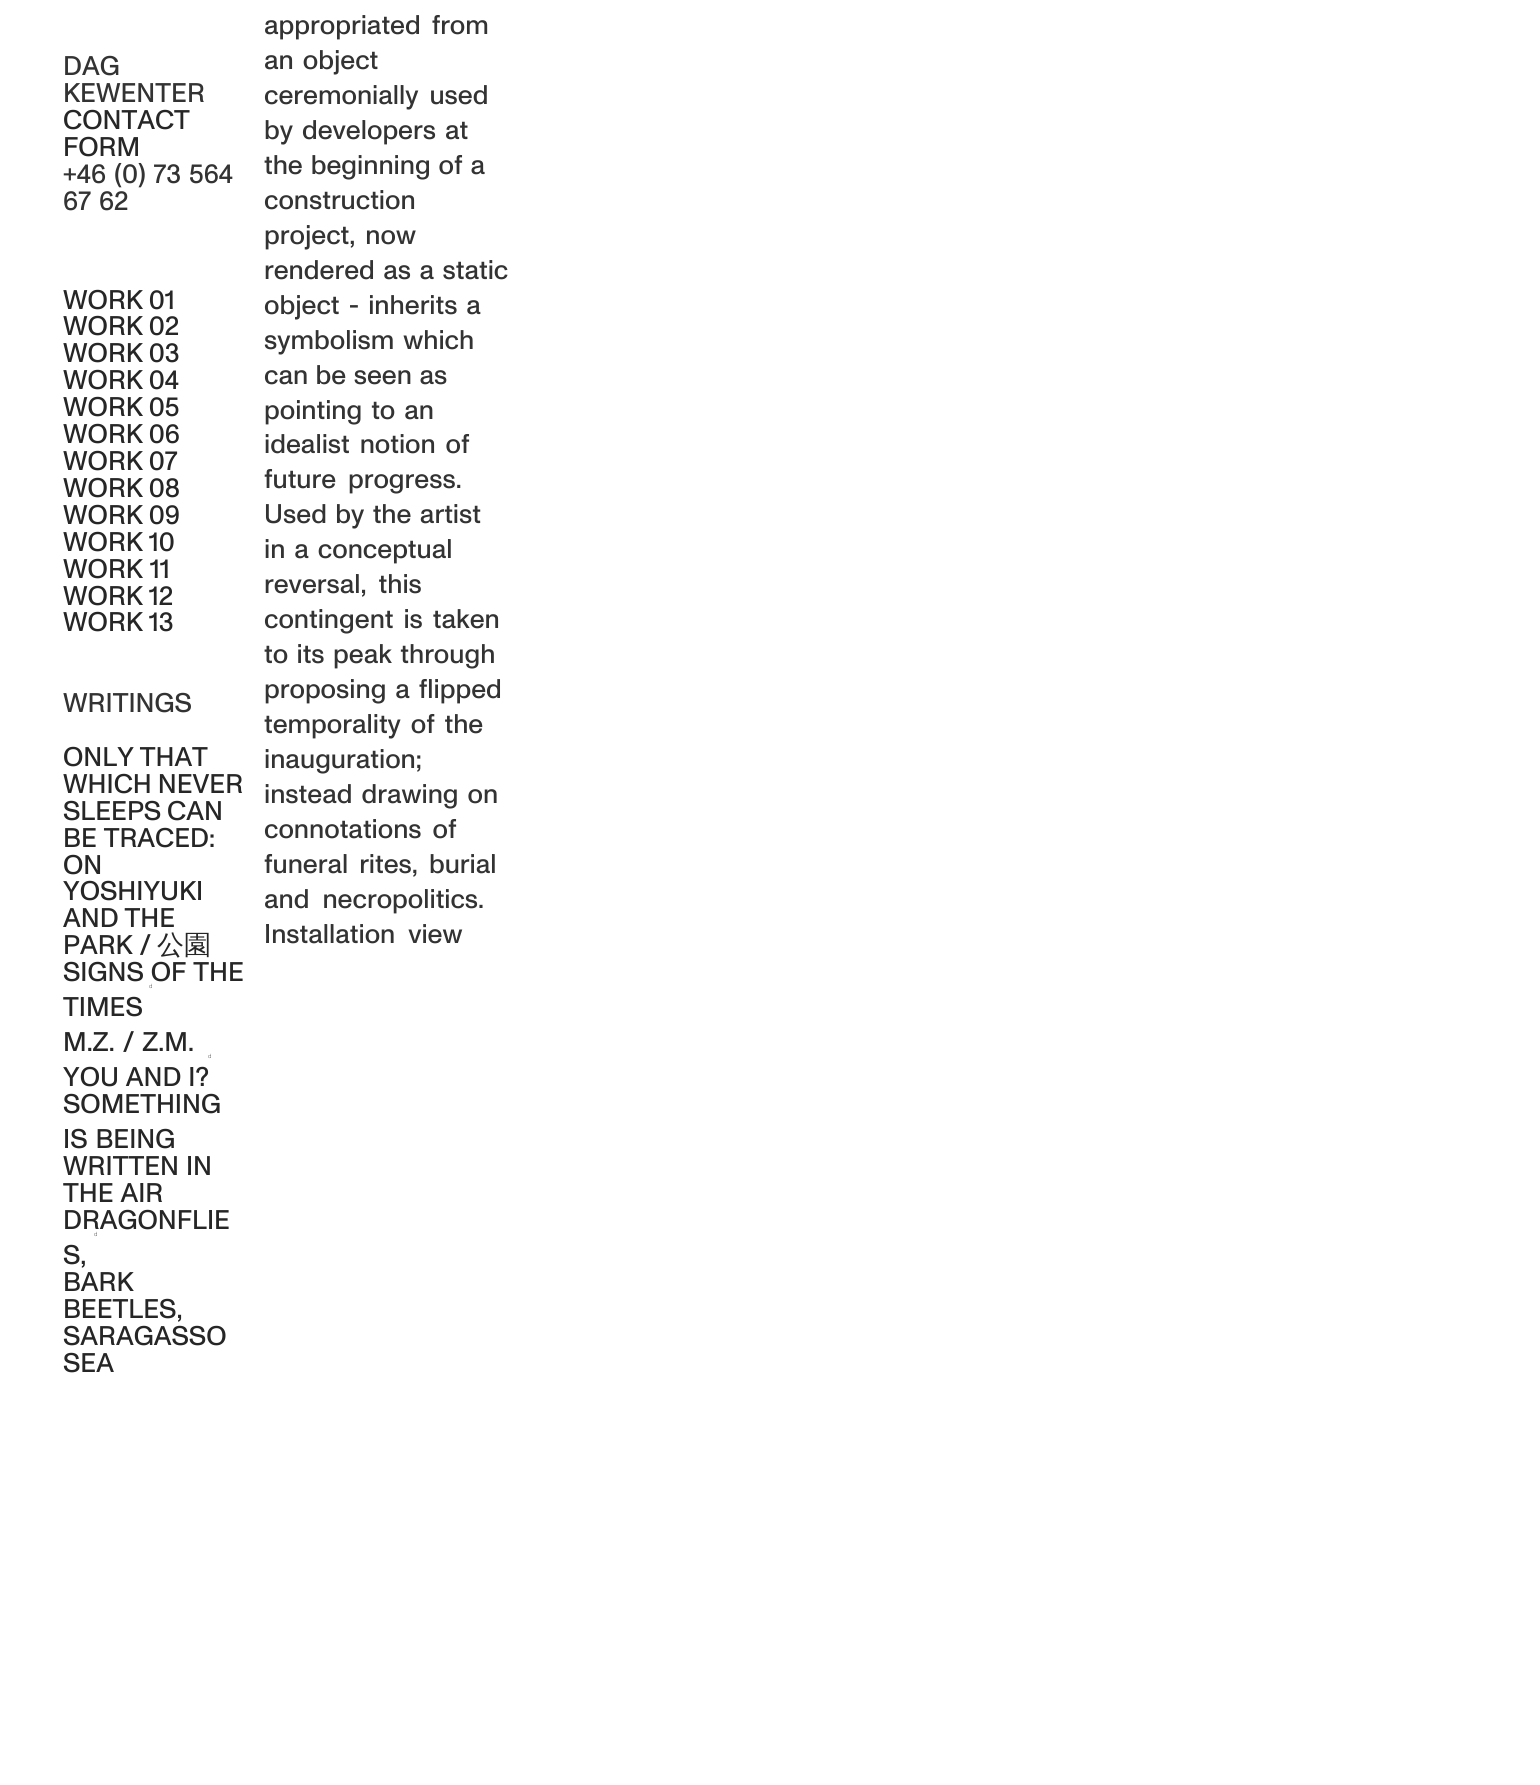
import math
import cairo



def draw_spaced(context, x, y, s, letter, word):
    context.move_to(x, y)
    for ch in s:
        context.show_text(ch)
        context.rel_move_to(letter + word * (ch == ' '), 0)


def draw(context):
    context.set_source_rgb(1, 1, 1)
    context.paint()
    context.select_font_face("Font")
    context.set_font_size(27)
    context.set_source_rgb(51 / 255, 51 / 255, 51 / 255)
    context.move_to(63, 75)
    context.show_text("DAG")
    context.move_to(63, 102)
    context.show_text("KEWENTER")
    context.set_source_rgb(38 / 255, 38 / 255, 38 / 255)
    context.move_to(63, 129)
    context.show_text("CONTACT")
    context.move_to(63, 156)
    context.show_text("FORM")
    context.set_source_rgb(51 / 255, 51 / 255, 51 / 255)
    draw_spaced(context, 63, 183, "+46 (0) 73 564", 0, 2)
    draw_spaced(context, 63, 210, "67 62", 0, 2)
    context.set_source_rgb(38 / 255, 38 / 255, 38 / 255)
    context.move_to(63, 309)
    context.show_text("WORK 01")
    context.move_to(63, 335)
    context.show_text("WORK 02")
    context.move_to(63, 362)
    context.show_text("WORK 03")
    context.move_to(63, 389)
    context.show_text("WORK 04")
    context.move_to(63, 416)
    context.show_text("WORK 05")
    context.move_to(63, 443)
    context.show_text("WORK 06")
    context.move_to(63, 470)
    context.show_text("WORK 07")
    context.move_to(63, 497)
    context.show_text("WORK 08")
    context.move_to(63, 524)
    context.show_text("WORK 09")
    context.move_to(63, 551)
    context.show_text("WORK 10")
    draw_spaced(context, 63, 578, "WORK 11", 0, 1)
    context.move_to(63, 605)
    context.show_text("WORK 12")
    context.move_to(63, 631)
    context.show_text("WORK 13")
    context.set_source_rgb(51 / 255, 51 / 255, 51 / 255)
    context.move_to(63, 712)
    context.show_text("WRITINGS")
    context.set_source_rgb(38 / 255, 38 / 255, 38 / 255)
    context.move_to(63, 766)
    context.show_text("ONLY THAT")
    context.move_to(63, 793)
    context.show_text("WHICH NEVER")
    context.move_to(63, 820)
    context.show_text("SLEEPS CAN")
    draw_spaced(context, 63, 847, "BE TRACED:", 0, 1)
    context.move_to(63, 874)
    context.show_text("ON")
    context.move_to(63, 900)
    context.show_text("YOSHIYUKI")
    context.move_to(63, 927)
    context.show_text("AND THE")
    draw_spaced(context, 63, 954, "PARK /", 0, 1)
    context.select_font_face("WenQuanYi Zen Hei Medium")
    context.move_to(157, 954)
    context.show_text("公園")
    context.select_font_face("Font")
    draw_spaced(context, 63, 981, "SIGNS OF THE", 0, 1)
    context.select_font_face("Font ExtraLight")
    context.set_font_size(6)
    context.move_to(149, 988)
    context.show_text("d")
    context.select_font_face("Font")
    context.set_font_size(27)
    context.move_to(63, 1016)
    context.show_text("TIMES")
    draw_spaced(context, 63, 1051, "M.Z. / Z.M.", 0, 2)
    context.select_font_face("Font ExtraLight")
    context.set_font_size(6)
    context.move_to(208, 1058)
    context.show_text("d")
    context.select_font_face("Font")
    context.set_font_size(27)
    draw_spaced(context, 63, 1086, "YOU AND I?", 0, 1)
    context.move_to(63, 1113)
    context.show_text("SOMETHING")
    draw_spaced(context, 63, 1148, "IS BEING", 0, 2)
    draw_spaced(context, 63, 1175, "WRITTEN IN", 0, 1)
    draw_spaced(context, 63, 1202, "THE AIR", 0, 1)
    context.move_to(63, 1229)
    context.show_text("DRAGONFLIE")
    context.select_font_face("Font ExtraLight")
    context.set_font_size(6)
    context.move_to(94, 1236)
    context.show_text("d")
    context.select_font_face("Font")
    context.set_font_size(27)
    context.move_to(63, 1264)
    context.show_text("S,")
    context.move_to(63, 1291)
    context.show_text("BARK")
    context.move_to(63, 1318)
    context.show_text("BEETLES,")
    context.move_to(63, 1345)
    context.show_text("SARAGASSO")
    context.move_to(63, 1372)
    context.show_text("SEA")
    context.set_source_rgb(51 / 255, 51 / 255, 51 / 255)
    draw_spaced(context, 264, 34, "appropriated from", 0, 5)
    draw_spaced(context, 264, 69, "an object", 0, 3)
    draw_spaced(context, 264, 104, "ceremonially used", 0, 5)
    draw_spaced(context, 264, 139, "by developers at", 0, 3)
    draw_spaced(context, 264, 174, "the beginning of a", 0, 2)
    context.move_to(264, 209)
    context.show_text("construction")
    draw_spaced(context, 264, 244, "project, now", 0, 4)
    draw_spaced(context, 264, 279, "rendered as a static", 0, 2.5)
    draw_spaced(context, 264, 314, "object - inherits a", 0, 3)
    draw_spaced(context, 264, 349, "symbolism which", 0, 3)
    draw_spaced(context, 264, 384, "can be seen as", 0, 1.5)
    draw_spaced(context, 264, 419, "pointing to an", 0, 3)
    draw_spaced(context, 264, 453, "idealist notion of", 0, 4)
    draw_spaced(context, 264, 488, "future progress.", 0, 6)
    draw_spaced(context, 264, 523, "Used by the artist", 0, 2.5)
    draw_spaced(context, 264, 558, "in a conceptual", 0, 3)
    draw_spaced(context, 264, 593, "reversal, this", 0, 6)
    draw_spaced(context, 264, 628, "contingent is taken", 0, 4)
    draw_spaced(context, 264, 663, "to its peak through", 0, 2.5)
    draw_spaced(context, 264, 698, "proposing a flipped", 0, 3)
    draw_spaced(context, 264, 733, "temporality of the", 0, 4)
    context.move_to(264, 768)
    context.show_text("inauguration;")
    draw_spaced(context, 264, 803, "instead drawing on", 0, 3)
    draw_spaced(context, 264, 838, "connotations of", 0, 5)
    draw_spaced(context, 264, 873, "funeral rites, burial", 0, 5)
    draw_spaced(context, 264, 908, "and necropolitics.", 0, 7)
    draw_spaced(context, 264, 943, "Installation view", 0, 7)


surface = cairo.ImageSurface(cairo.Format.RGB24, 1540, 1785)
context = cairo.Context(surface)
options = cairo.FontOptions()
options.set_hint_metrics(cairo.HintMetrics.OFF)
options.set_hint_style(cairo.HintStyle.NONE)
context.set_font_options(options)
context.set_miter_limit(4)
draw(context)
surface.write_to_png("out.png")
